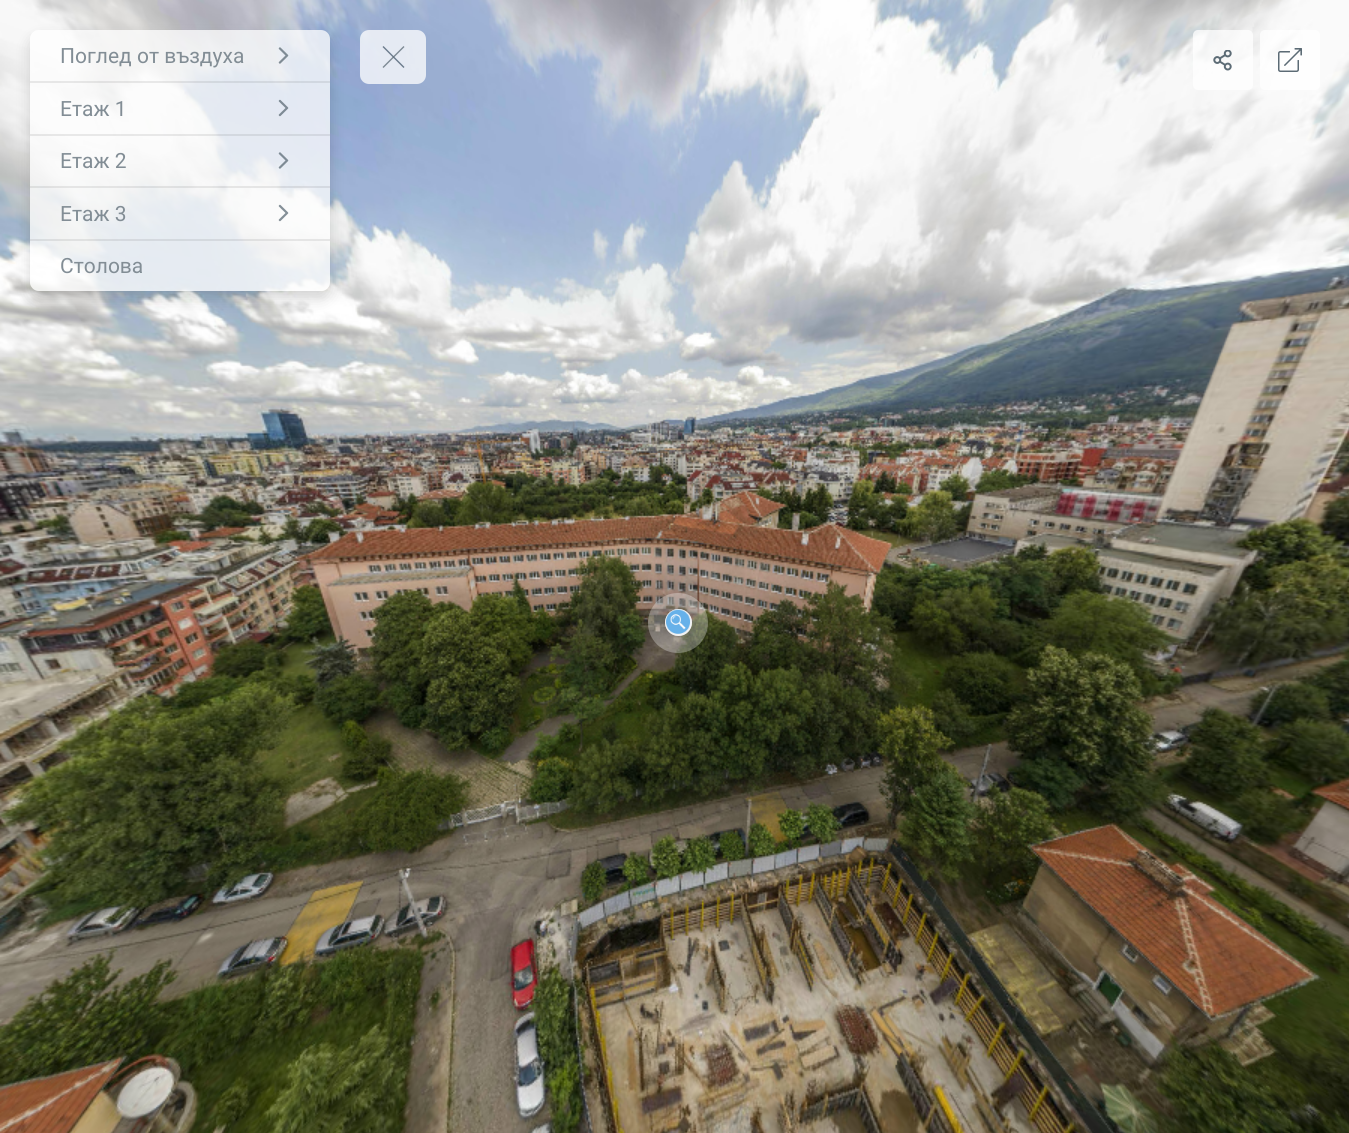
import math
import cairo



def rounded_rect(context, x, y, w, h, r):
    context.new_sub_path()
    for i, (u, v) in enumerate([(x + w - r, y + h - r), (x + r, y + h - r), (x + r, y + r), (x + w - r, y + r)]):
        context.arc(u, v, r, i * math.pi / 2, (i + 1) * math.pi / 2)
    context.close_path()


def draw_shadow(context, x, y, w, h, r, blur, alpha):
    context.push_group_with_content(cairo.Content.ALPHA)
    context.set_operator(cairo.Operator.SOURCE)
    for i in range(15, -16, -2):
        e = blur * i / 6
        if min(w, h) + 2 * e > 0:
            context.set_source_rgba(0, 0, 0, alpha * math.erfc((i - 1) / 8.5) / 2)
            rounded_rect(context, x - e, y - e, w + 2 * e, h + 2 * e, max(0, min(r + e + blur * .6, min(w, h) / 2 + e)))
            context.fill()
    context.mask(context.pop_group())


def draw_image(context, path, x, y, w, h):
    context.save()
    context.set_source_surface(cairo.ImageSurface.create_from_png(path), x, y)
    context.rectangle(x, y, w, h)
    context.fill()
    context.restore()


def draw(context):
    context.set_source_rgb(1, 1, 1)
    context.paint()
    draw_image(context, "images/1.png", 0, 0, 1349, 1133)
    context.set_source_rgba(1, 1, 1, 0.3)
    context.arc(678, 623, 30, 0, 2 * math.pi)
    context.fill()
    context.set_source_rgb(0, 0, 0)
    draw_shadow(context, 665, 609, 27, 27, 13.5, 7.5, 0.1)
    context.set_source_rgb(224 / 255, 224 / 255, 224 / 255)
    context.arc(678.5, 622.5, 13.5, 0, 2 * math.pi)
    context.fill()
    context.arc(678.5, 622.5, 11, 0, 2 * math.pi)
    context.set_source_rgba(1, 1, 1, 0.6)
    context.set_line_width(5)
    context.stroke()
    draw_image(context, "images/2.png", 666, 609, 25, 25)
    context.save()
    context.set_fill_rule(cairo.FillRule.EVEN_ODD)
    context.new_path()
    context.move_to(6, 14)
    context.line_to(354, 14)
    context.line_to(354, 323)
    context.line_to(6, 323)
    context.close_path()
    context.move_to(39, 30)
    context.line_to(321, 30)
    context.curve_to(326, 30, 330, 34, 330, 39)
    context.line_to(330, 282)
    context.curve_to(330, 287, 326, 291, 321, 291)
    context.line_to(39, 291)
    context.curve_to(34, 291, 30, 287, 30, 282)
    context.line_to(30, 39)
    context.curve_to(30, 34, 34, 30, 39, 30)
    context.close_path()
    context.clip()
    context.set_source_rgb(0, 0, 0)
    draw_shadow(context, 30, 38, 300, 261, 9, 7.5, 0.15)
    context.restore()
    context.set_source_rgba(1, 1, 1, 0.75)
    rounded_rect(context, 30, 30, 300, 261, 9)
    context.fill()
    context.set_source_rgba(0, 0, 0, 0.08)
    context.rectangle(30, 81, 300, 2)
    context.fill()
    draw_image(context, "images/3.png", 278, 47, 11, 17)
    context.rectangle(30, 134, 300, 2)
    context.fill()
    draw_image(context, "images/4.png", 278, 99, 11, 18)
    context.rectangle(30, 186, 300, 2)
    context.fill()
    draw_image(context, "images/5.png", 278, 152, 11, 17)
    context.rectangle(30, 239, 300, 2)
    context.fill()
    draw_image(context, "images/6.png", 278, 204, 11, 18)
    context.set_source_rgba(1, 1, 1, 0.75)
    rounded_rect(context, 360, 30, 66, 54, 9)
    context.fill()
    context.set_source_rgb(107 / 255, 123 / 255, 140 / 255)
    context.new_path()
    context.move_to(383.5, 46)
    context.line_to(404.5, 67)
    context.line_to(403.5, 68)
    context.line_to(382.5, 47)
    context.close_path()
    context.fill()
    context.set_source_rgba(92 / 255, 107 / 255, 117 / 255, 0.75)
    context.new_path()
    context.move_to(382.5, 67)
    context.line_to(403.5, 46)
    context.line_to(404.5, 47)
    context.line_to(383.5, 68)
    context.close_path()
    context.fill()
    context.set_source_rgba(1, 1, 1, 0.75)
    rounded_rect(context, 1193, 30, 60, 60, 5)
    context.fill()
    draw_image(context, "images/7.png", 1213, 50, 19, 21)
    rounded_rect(context, 1260, 30, 60, 60, 5)
    context.fill()
    draw_image(context, "images/8.png", 1278, 48, 24, 24)
    context.select_font_face("Roboto")
    context.set_font_size(21)
    context.set_source_rgb(130 / 255, 141 / 255, 149 / 255)
    context.move_to(60, 63)
    context.show_text("Поглед от въздуха")
    context.move_to(60, 116)
    context.show_text("Етаж 1")
    context.move_to(60, 168)
    context.show_text("Етаж 2")
    context.move_to(60, 221)
    context.show_text("Етаж 3")
    context.move_to(60, 273)
    context.show_text("Столова")


surface = cairo.ImageSurface(cairo.Format.RGB24, 1349, 1133)
context = cairo.Context(surface)
options = cairo.FontOptions()
options.set_hint_metrics(cairo.HintMetrics.OFF)
options.set_hint_style(cairo.HintStyle.NONE)
context.set_font_options(options)
context.set_miter_limit(4)
draw(context)
surface.write_to_png("out.png")
